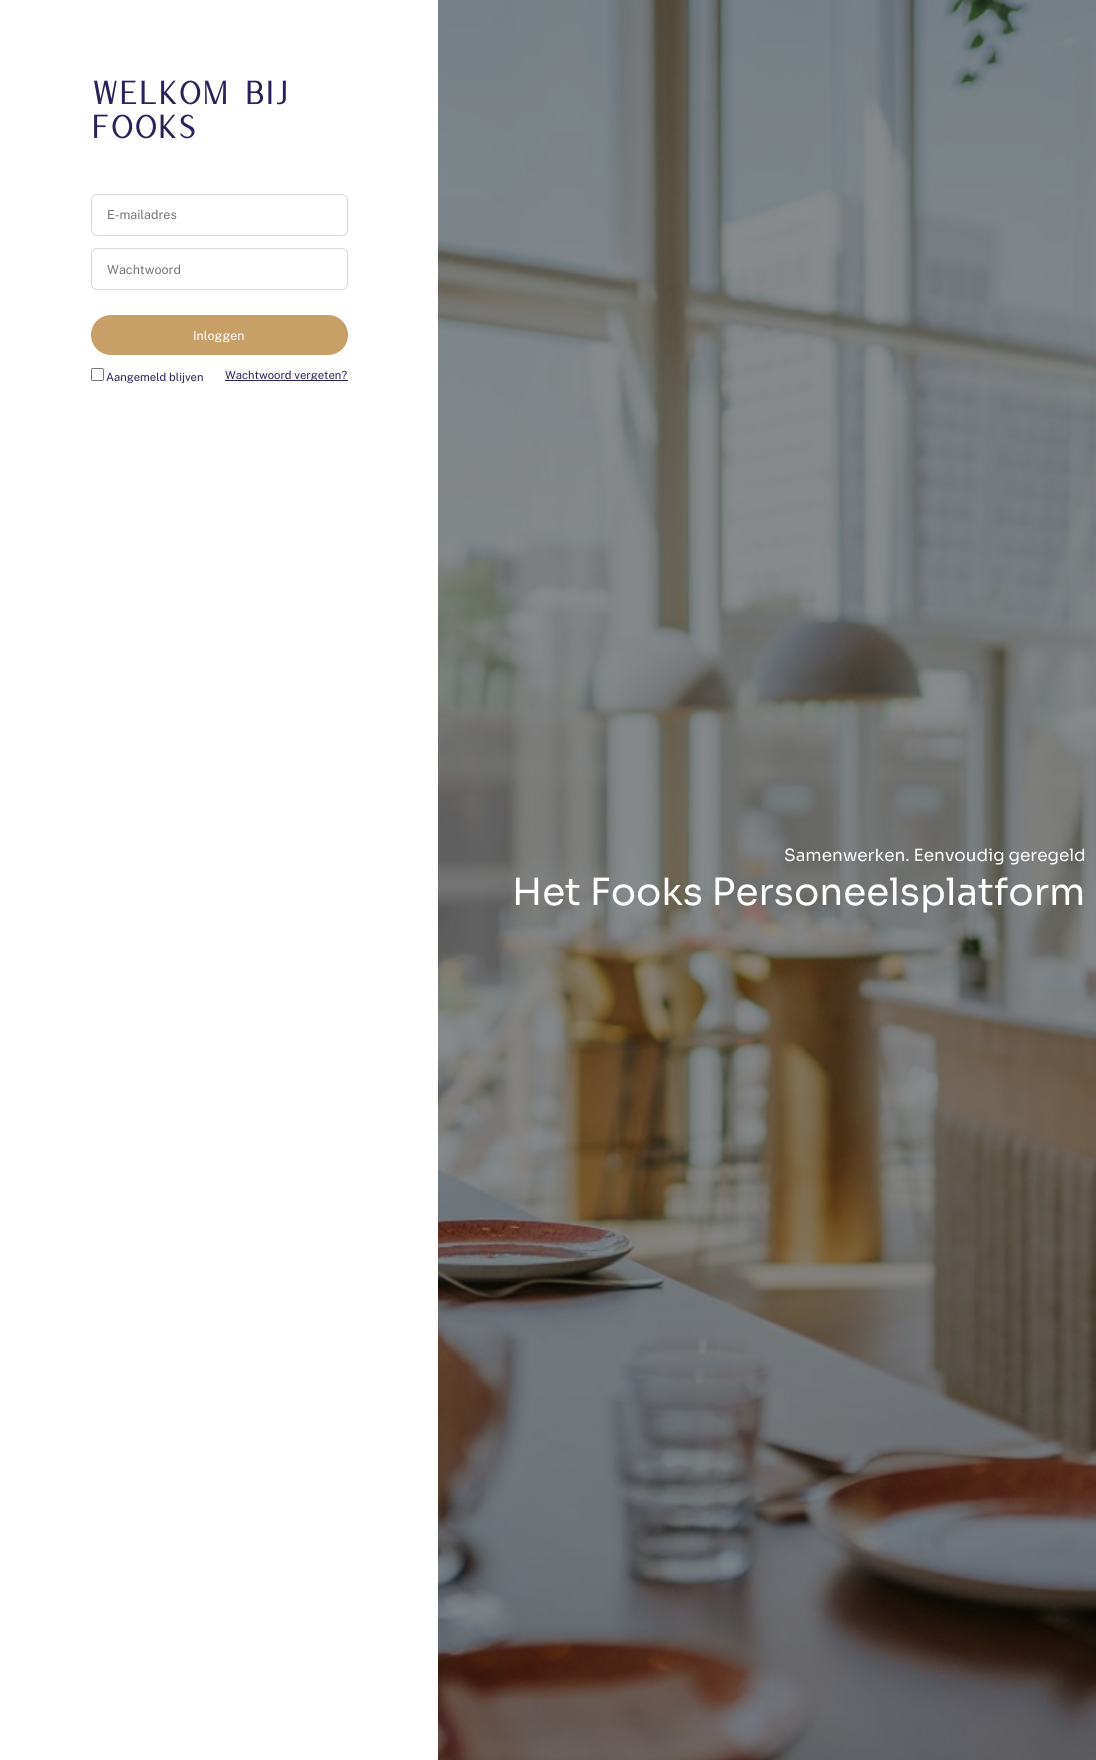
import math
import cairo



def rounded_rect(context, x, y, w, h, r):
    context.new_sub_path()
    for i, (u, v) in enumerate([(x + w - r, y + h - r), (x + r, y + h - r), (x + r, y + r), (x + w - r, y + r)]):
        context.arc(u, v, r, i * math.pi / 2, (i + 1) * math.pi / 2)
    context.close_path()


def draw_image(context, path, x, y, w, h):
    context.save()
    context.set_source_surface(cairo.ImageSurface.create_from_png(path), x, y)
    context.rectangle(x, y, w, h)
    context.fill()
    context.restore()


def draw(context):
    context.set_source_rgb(1, 1, 1)
    context.paint()
    draw_image(context, "images/1.png", 438, 0, 658, 1760)
    rounded_rect(context, 91.5, 194.5, 256, 41, 5.5)
    context.set_source_rgb(217 / 255, 217 / 255, 217 / 255)
    context.set_line_width(1)
    context.stroke()
    rounded_rect(context, 91.5, 248.5, 256, 41, 5.5)
    context.stroke()
    context.set_source_rgb(200 / 255, 159 / 255, 103 / 255)
    rounded_rect(context, 91, 315, 257, 40, 20)
    context.fill()
    rounded_rect(context, 91.5, 368.5, 12, 12, 1.5)
    context.set_source_rgb(118 / 255, 118 / 255, 118 / 255)
    context.stroke()
    context.set_source_rgb(40 / 255, 35 / 255, 92 / 255)
    context.rectangle(225, 380, 123, 1)
    context.fill()
    context.select_font_face("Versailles", cairo.FontSlant.NORMAL, cairo.FontWeight.BOLD)
    context.set_font_size(31.25)
    context.move_to(91, 104)
    context.show_text("WELKOM BIJ")
    context.move_to(91, 138)
    context.show_text("FOOKS")
    context.select_font_face("Public Sans")
    context.set_font_size(12.5)
    context.set_source_rgb(117 / 255, 117 / 255, 117 / 255)
    context.move_to(107, 219)
    context.show_text("E-mailadres")
    context.move_to(107, 274)
    context.show_text("Wachtwoord")
    context.set_source_rgb(1, 1, 1)
    context.move_to(193, 340)
    context.show_text("Inloggen")
    context.set_font_size(11.25)
    context.set_source_rgb(40 / 255, 35 / 255, 92 / 255)
    context.move_to(106, 381)
    context.show_text("Aangemeld blijven")
    context.move_to(225, 379)
    context.show_text("Wachtwoord vergeten?")
    context.select_font_face("Sora")
    context.set_font_size(16.9)
    context.set_source_rgb(1, 1, 1)
    context.move_to(784, 861)
    context.show_text("Samenwerken. Eenvoudig geregeld")
    context.set_font_size(37.5)
    context.move_to(512, 905)
    context.show_text("Het Fooks Personeelsplatform")


surface = cairo.ImageSurface(cairo.Format.RGB24, 1096, 1760)
context = cairo.Context(surface)
options = cairo.FontOptions()
options.set_hint_metrics(cairo.HintMetrics.OFF)
options.set_hint_style(cairo.HintStyle.NONE)
context.set_font_options(options)
context.set_miter_limit(4)
draw(context)
surface.write_to_png("out.png")
